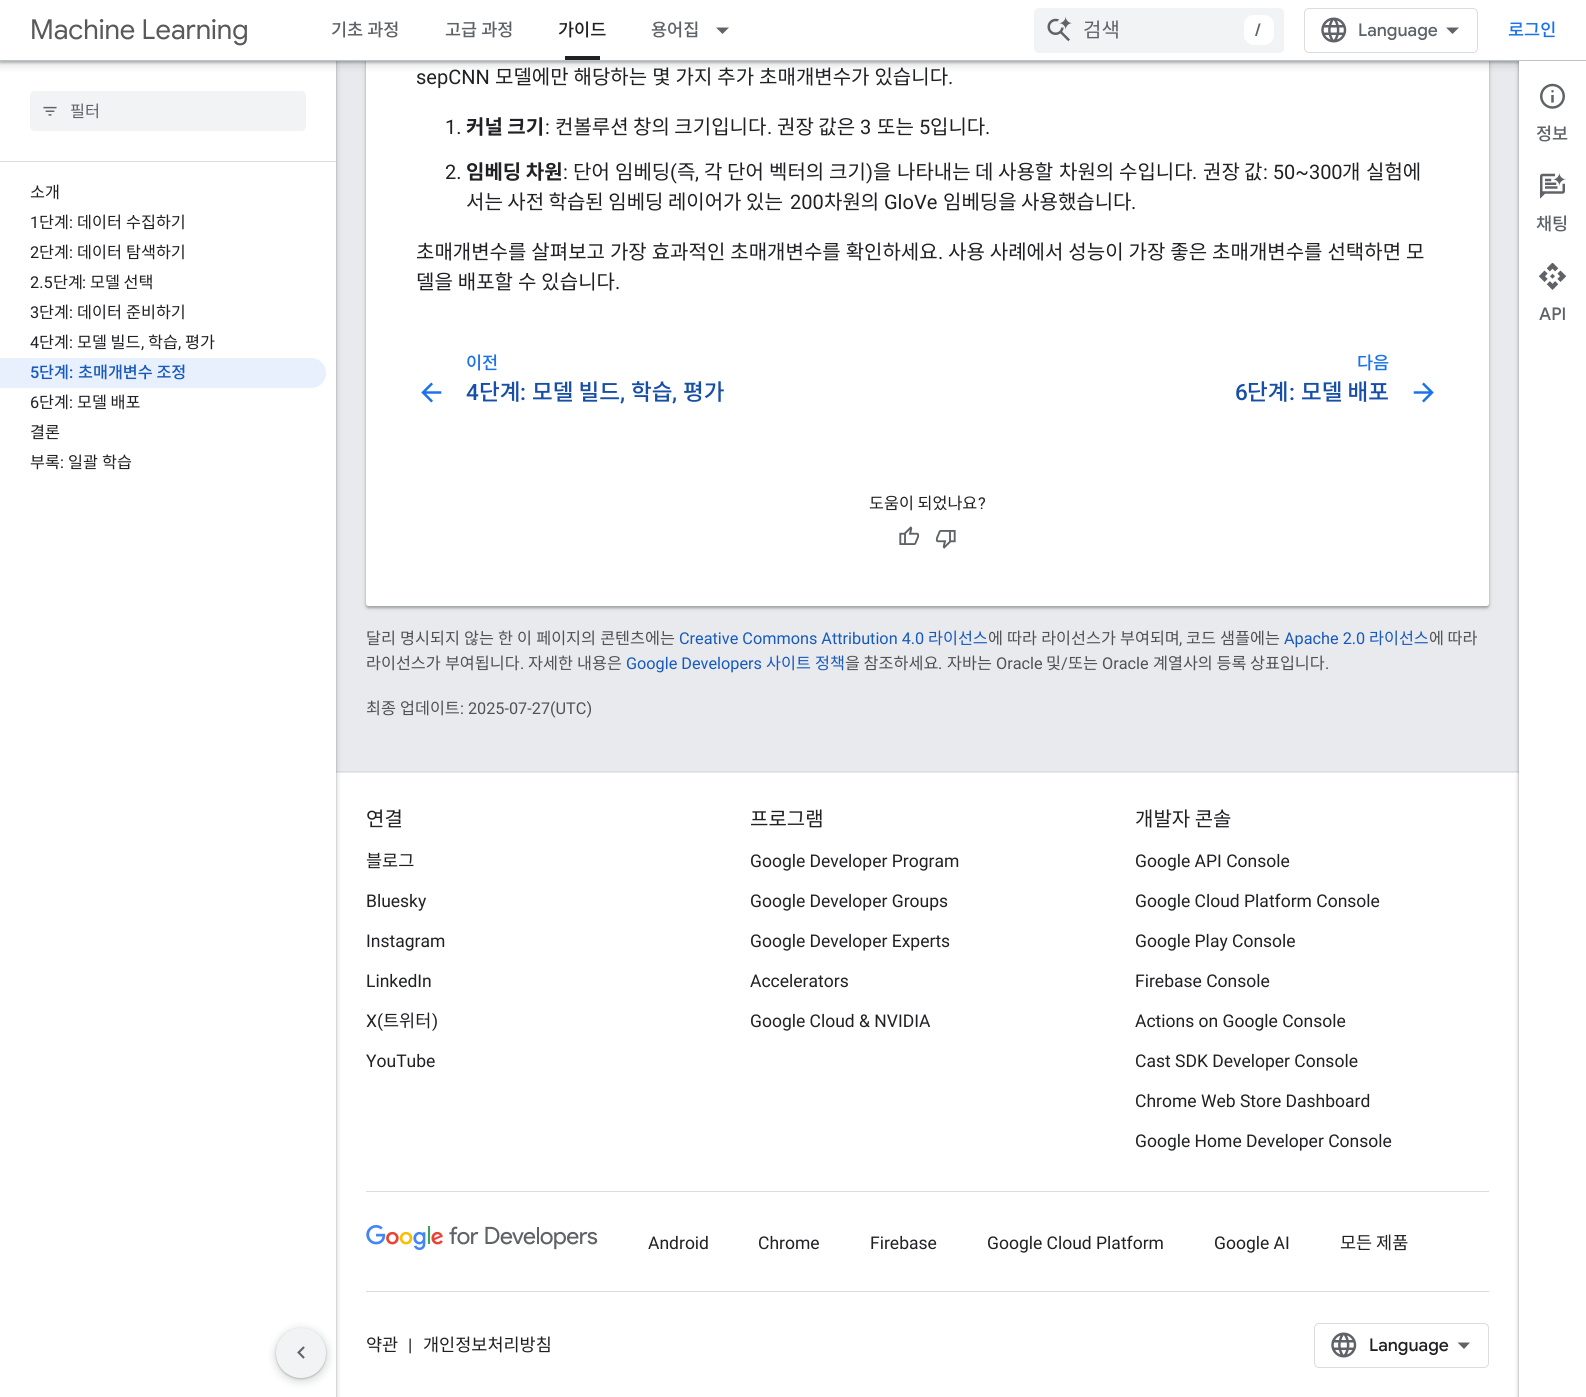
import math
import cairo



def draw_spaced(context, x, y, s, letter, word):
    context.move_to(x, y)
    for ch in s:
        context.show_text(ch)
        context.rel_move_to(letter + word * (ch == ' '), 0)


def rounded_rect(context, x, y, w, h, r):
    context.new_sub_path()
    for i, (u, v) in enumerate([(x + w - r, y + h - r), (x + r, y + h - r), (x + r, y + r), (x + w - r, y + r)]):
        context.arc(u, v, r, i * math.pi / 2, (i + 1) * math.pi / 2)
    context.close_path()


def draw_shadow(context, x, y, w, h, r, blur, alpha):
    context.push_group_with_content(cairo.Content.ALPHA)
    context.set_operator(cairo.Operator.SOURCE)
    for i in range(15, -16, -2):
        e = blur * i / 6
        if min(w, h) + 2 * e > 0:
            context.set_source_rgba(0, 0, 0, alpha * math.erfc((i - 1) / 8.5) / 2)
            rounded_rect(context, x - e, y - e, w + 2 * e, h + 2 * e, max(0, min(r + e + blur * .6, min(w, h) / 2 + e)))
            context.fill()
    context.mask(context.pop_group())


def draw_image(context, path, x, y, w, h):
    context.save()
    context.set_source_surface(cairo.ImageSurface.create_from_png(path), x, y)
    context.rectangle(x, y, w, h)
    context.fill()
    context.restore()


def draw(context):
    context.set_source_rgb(232 / 255, 234 / 255, 237 / 255)
    context.paint()
    context.set_source_rgb(218 / 255, 220 / 255, 224 / 255)
    context.rectangle(336, 771, 1183, 1)
    context.fill()
    context.set_source_rgb(1, 1, 1)
    context.rectangle(336, 773, 1183, 624)
    context.fill()
    context.set_source_rgb(60 / 255, 64 / 255, 67 / 255)
    draw_shadow(context, -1, 0, 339, 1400, 0, 2, 0.15)
    draw_shadow(context, 0, 1, 336, 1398, 0, 1, 0.3)
    context.set_source_rgb(1, 1, 1)
    context.rectangle(0, 61, 336, 1336)
    context.fill()
    context.set_source_rgb(60 / 255, 64 / 255, 67 / 255)
    draw_shadow(context, 365, -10, 1125, 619, 4, 2, 0.15)
    draw_shadow(context, 366, -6, 1123, 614, 2.5, 1, 0.3)
    context.set_source_rgb(1, 1, 1)
    rounded_rect(context, 366, -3, 1123, 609, 2.5)
    context.fill()
    context.set_source_rgb(60 / 255, 64 / 255, 67 / 255)
    draw_shadow(context, -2, -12, 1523, 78, 0, 4, 0.15)
    draw_shadow(context, 0, -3, 1519, 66, 0, 1, 0.3)
    context.set_source_rgb(0, 0, 0)
    draw_shadow(context, 1518, 60, 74, 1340, 0, 2, 0.15)
    draw_shadow(context, 1519, 61, 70, 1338, 0, 1, 0.3)
    context.set_source_rgb(1, 1, 1)
    context.rectangle(0, 0, 1586, 60)
    context.fill()
    context.set_source_rgb(189 / 255, 193 / 255, 198 / 255)
    context.rectangle(0, 60, 1586, 1)
    context.fill()
    context.set_source_rgb(32 / 255, 33 / 255, 36 / 255)
    context.rectangle(565, 56, 35, 4)
    context.fill()
    context.set_source_rgb(95 / 255, 99 / 255, 104 / 255)
    context.new_path()
    context.move_to(716, 27.5)
    context.line_to(729, 27.5)
    context.line_to(722.5, 34)
    context.close_path()
    context.fill()
    context.set_source_rgb(241 / 255, 243 / 255, 244 / 255)
    rounded_rect(context, 1034, 8, 250, 45, 5)
    context.fill()
    draw_image(context, "images/1.png", 1047, 16, 25, 26)
    context.set_source_rgb(1, 1, 1)
    rounded_rect(context, 1244, 15, 30, 30, 10)
    context.fill()
    rounded_rect(context, 1304.5, 8.5, 173, 44, 4.5)
    context.set_source_rgb(218 / 255, 220 / 255, 224 / 255)
    context.set_line_width(1)
    context.stroke()
    draw_image(context, "images/2.png", 1321, 17, 26, 26)
    context.set_source_rgb(95 / 255, 99 / 255, 104 / 255)
    context.new_path()
    context.move_to(1452.5, 34)
    context.line_to(1446, 27.5)
    context.line_to(1459, 27.5)
    context.close_path()
    context.fill()
    context.set_source_rgb(218 / 255, 220 / 255, 224 / 255)
    context.rectangle(0, 161, 336, 1)
    context.fill()
    context.set_source_rgb(241 / 255, 243 / 255, 244 / 255)
    rounded_rect(context, 30, 91, 276, 40, 5)
    context.fill()
    draw_image(context, "images/3.png", 43, 106, 14, 10)
    context.set_source_rgb(232 / 255, 240 / 255, 254 / 255)
    context.new_path()
    context.move_to(0, 358)
    context.line_to(311, 358)
    context.curve_to(319.5, 358, 326, 364.5, 326, 373)
    context.curve_to(326, 381.5, 319.5, 388, 311, 388)
    context.line_to(0, 388)
    context.close_path()
    context.fill()
    draw_image(context, "images/4.png", 421, 382, 21, 21)
    draw_image(context, "images/5.png", 1413, 382, 21, 21)
    draw_image(context, "images/6.png", 899, 526, 21, 19)
    draw_image(context, "images/7.png", 935, 530, 21, 19)
    context.set_source_rgb(1, 1, 1)
    context.rectangle(1519, 61, 67, 1336)
    context.fill()
    draw_image(context, "images/8.png", 1540, 83, 25, 26)
    draw_image(context, "images/9.png", 1540, 173, 26, 26)
    draw_image(context, "images/10.png", 1539, 263, 27, 27)
    context.set_source_rgb(218 / 255, 220 / 255, 224 / 255)
    context.rectangle(366, 1191, 1123, 1)
    context.fill()
    context.rectangle(366, 1291, 1123, 1)
    context.fill()
    draw_image(context, "images/11.png", 366, 1225, 232, 25)
    rounded_rect(context, 1314.5, 1323.5, 174, 44, 4.5)
    context.stroke()
    draw_image(context, "images/2.png", 1331, 1332, 26, 26)
    context.set_source_rgb(95 / 255, 99 / 255, 104 / 255)
    context.new_path()
    context.move_to(1464, 1349)
    context.line_to(1457.5, 1342.5)
    context.line_to(1470, 1342.5)
    context.close_path()
    context.fill()
    context.set_source_rgb(60 / 255, 64 / 255, 67 / 255)
    draw_shadow(context, 274, 1328, 55, 55, 27.5, 4, 0.15)
    draw_shadow(context, 276, 1329, 50, 50, 25, 1, 0.3)
    context.set_source_rgb(241 / 255, 243 / 255, 244 / 255)
    context.arc(301, 1353, 25, 0, 2 * math.pi)
    context.fill()
    draw_image(context, "images/12.png", 297, 1346, 8, 13)
    context.select_font_face("Google Sans")
    context.set_font_size(27.5)
    context.set_source_rgb(89 / 255, 89 / 255, 89 / 255)
    context.move_to(30, 39)
    context.show_text("Machine Learning")
    context.select_font_face("Noto Sans KR Medium")
    context.set_font_size(17.5)
    context.set_source_rgb(95 / 255, 99 / 255, 104 / 255)
    context.move_to(331, 36)
    context.show_text("기초 과정")
    context.move_to(445, 36)
    context.show_text("고급 과정")
    context.set_source_rgb(32 / 255, 33 / 255, 36 / 255)
    context.move_to(558, 36)
    context.show_text("가이드")
    context.set_source_rgb(95 / 255, 99 / 255, 104 / 255)
    context.move_to(651, 36)
    context.show_text("용어집")
    context.select_font_face("Noto Sans KR")
    context.set_font_size(20)
    context.move_to(1083, 37)
    context.show_text("검색")
    context.select_font_face("Google Sans Medium")
    context.set_font_size(17.5)
    context.move_to(1255, 36)
    context.show_text("/")
    context.move_to(1358, 36)
    context.show_text("Language")
    context.select_font_face("Noto Sans KR Medium")
    context.set_source_rgb(26 / 255, 115 / 255, 232 / 255)
    context.move_to(1508, 36)
    context.show_text("로그인")
    context.select_font_face("Noto Sans KR")
    context.set_font_size(16.25)
    context.set_source_rgb(95 / 255, 99 / 255, 104 / 255)
    context.move_to(70, 117)
    context.show_text("필터")
    context.set_source_rgb(32 / 255, 33 / 255, 36 / 255)
    context.move_to(30, 198)
    context.show_text("소개")
    context.select_font_face("Roboto")
    context.move_to(30, 228)
    context.show_text("1")
    context.select_font_face("Noto Sans KR")
    context.move_to(39, 228)
    context.show_text("단계")
    context.select_font_face("Roboto")
    context.move_to(69, 228)
    context.show_text(":")
    context.select_font_face("Noto Sans KR")
    draw_spaced(context, 77, 228, "데이터 수집하기", 0, 0.5)
    context.select_font_face("Roboto")
    context.move_to(30, 258)
    context.show_text("2")
    context.select_font_face("Noto Sans KR")
    context.move_to(39, 258)
    context.show_text("단계")
    context.select_font_face("Roboto")
    context.move_to(69, 258)
    context.show_text(":")
    context.select_font_face("Noto Sans KR")
    draw_spaced(context, 77, 258, "데이터 탐색하기", 0, 0.5)
    context.select_font_face("Roboto")
    context.move_to(30, 288)
    context.show_text("2.5")
    context.select_font_face("Noto Sans KR")
    context.move_to(53, 288)
    context.show_text("단계")
    context.select_font_face("Roboto")
    context.move_to(82, 288)
    context.show_text(":")
    context.select_font_face("Noto Sans KR")
    context.move_to(90, 288)
    context.show_text("모델 선택")
    context.select_font_face("Roboto")
    context.move_to(30, 318)
    context.show_text("3")
    context.select_font_face("Noto Sans KR")
    context.move_to(39, 318)
    context.show_text("단계")
    context.select_font_face("Roboto")
    context.move_to(69, 318)
    context.show_text(":")
    context.select_font_face("Noto Sans KR")
    draw_spaced(context, 77, 318, "데이터 준비하기", 0, 0.5)
    context.select_font_face("Roboto")
    context.move_to(30, 348)
    context.show_text("4")
    context.select_font_face("Noto Sans KR")
    context.move_to(39, 348)
    context.show_text("단계")
    context.select_font_face("Roboto")
    context.move_to(69, 348)
    context.show_text(":")
    context.select_font_face("Noto Sans KR")
    context.move_to(77, 348)
    context.show_text("모델 빌드")
    context.select_font_face("Roboto")
    context.move_to(141, 348)
    context.show_text(",")
    context.select_font_face("Noto Sans KR")
    context.move_to(148, 348)
    context.show_text("학습")
    context.select_font_face("Roboto")
    context.move_to(178, 348)
    context.show_text(",")
    context.select_font_face("Noto Sans KR")
    context.move_to(185, 348)
    context.show_text("평가")
    context.select_font_face("Roboto Medium")
    context.set_source_rgb(24 / 255, 90 / 255, 188 / 255)
    context.move_to(30, 378)
    context.show_text("5")
    context.select_font_face("Noto Sans KR Medium")
    context.move_to(39, 378)
    context.show_text("단계")
    context.select_font_face("Roboto Medium")
    context.move_to(69, 378)
    context.show_text(":")
    context.select_font_face("Noto Sans KR Medium")
    context.move_to(78, 378)
    context.show_text("초매개변수 조정")
    context.select_font_face("Roboto")
    context.set_source_rgb(32 / 255, 33 / 255, 36 / 255)
    context.move_to(30, 408)
    context.show_text("6")
    context.select_font_face("Noto Sans KR")
    context.move_to(39, 408)
    context.show_text("단계")
    context.select_font_face("Roboto")
    context.move_to(69, 408)
    context.show_text(":")
    context.select_font_face("Noto Sans KR")
    context.move_to(77, 408)
    context.show_text("모델 배포")
    context.move_to(30, 438)
    context.show_text("결론")
    context.move_to(30, 468)
    context.show_text("부록")
    context.select_font_face("Roboto")
    context.move_to(60, 468)
    context.show_text(":")
    context.select_font_face("Noto Sans KR")
    draw_spaced(context, 68, 468, "일괄 학습", 0, 0.5)
    context.select_font_face("Roboto")
    context.set_font_size(20)
    context.move_to(416, 84)
    context.show_text("sepCNN")
    context.select_font_face("Noto Sans KR")
    draw_spaced(context, 495, 84, "모델에만 해당하는 몇 가지 추가 초매개변수가 있습니다", 0, 0.5)
    context.select_font_face("Roboto")
    context.move_to(948, 84)
    context.show_text(".")
    context.move_to(445, 134)
    context.show_text("1.")
    context.select_font_face("Noto Sans KR", cairo.FontSlant.NORMAL, cairo.FontWeight.BOLD)
    context.move_to(466, 134)
    context.show_text("커널 크기")
    context.select_font_face("Roboto")
    context.move_to(545, 134)
    context.show_text(":")
    context.select_font_face("Noto Sans KR")
    context.move_to(555, 134)
    context.show_text("컨볼루션 창의 크기입니다")
    context.select_font_face("Roboto")
    context.move_to(767, 134)
    context.show_text(".")
    context.select_font_face("Noto Sans KR")
    context.move_to(777, 134)
    context.show_text("권장 값은")
    context.select_font_face("Roboto")
    context.move_to(860, 134)
    context.show_text("3")
    context.select_font_face("Noto Sans KR")
    context.move_to(877, 134)
    context.show_text("또는")
    context.select_font_face("Roboto")
    context.move_to(919, 134)
    context.show_text("5")
    context.select_font_face("Noto Sans KR")
    context.move_to(930, 134)
    context.show_text("입니다")
    context.select_font_face("Roboto")
    context.move_to(985, 134)
    context.show_text(".")
    context.move_to(445, 179)
    context.show_text("2.")
    context.select_font_face("Noto Sans KR", cairo.FontSlant.NORMAL, cairo.FontWeight.BOLD)
    context.move_to(466, 179)
    context.show_text("임베딩 차원")
    context.select_font_face("Roboto")
    context.move_to(563, 179)
    context.show_text(":")
    context.select_font_face("Noto Sans KR")
    context.move_to(573, 179)
    context.show_text("단어")
    context.move_to(615, 179)
    context.show_text("임베딩")
    context.select_font_face("Roboto")
    context.move_to(670, 179)
    context.show_text("(")
    context.select_font_face("Noto Sans KR")
    context.move_to(677, 179)
    context.show_text("즉")
    context.select_font_face("Roboto")
    context.move_to(695, 179)
    context.show_text(",")
    context.select_font_face("Noto Sans KR")
    context.move_to(704, 179)
    context.show_text("각")
    context.move_to(727, 179)
    context.show_text("단어")
    context.move_to(769, 179)
    context.show_text("벡터의")
    context.move_to(829, 179)
    context.show_text("크기")
    context.select_font_face("Roboto")
    context.move_to(866, 179)
    context.show_text(")")
    context.select_font_face("Noto Sans KR")
    context.move_to(873, 179)
    context.show_text("을")
    context.move_to(897, 179)
    context.show_text("나타내는")
    context.move_to(975, 179)
    context.show_text("데")
    context.move_to(998, 179)
    context.show_text("사용할")
    context.move_to(1059, 179)
    context.show_text("차원의")
    context.move_to(1119, 179)
    context.show_text("수입니다")
    context.select_font_face("Roboto")
    context.move_to(1192, 179)
    context.show_text(".")
    context.select_font_face("Noto Sans KR")
    context.move_to(1203, 179)
    context.show_text("권장")
    context.move_to(1244, 179)
    context.show_text("값")
    context.select_font_face("Roboto")
    context.move_to(1263, 179)
    context.show_text(": 50~300")
    context.select_font_face("Noto Sans KR")
    context.move_to(1342, 179)
    context.show_text("개")
    context.move_to(1366, 179)
    context.show_text("실험에")
    context.move_to(466, 209)
    context.show_text("서는 사전 학습된 임베딩 레이어가 있는")
    context.select_font_face("Roboto")
    context.move_to(790, 209)
    context.show_text("200")
    context.select_font_face("Noto Sans KR")
    context.move_to(824, 209)
    context.show_text("차원의")
    context.select_font_face("Roboto")
    context.move_to(884, 209)
    context.show_text("GloVe")
    context.select_font_face("Noto Sans KR")
    context.move_to(943, 209)
    context.show_text("임베딩을 사용했습니다")
    context.select_font_face("Roboto")
    context.move_to(1131, 209)
    context.show_text(".")
    context.select_font_face("Noto Sans KR")
    draw_spaced(context, 416, 259, "초매개변수를 살펴보고 가장 효과적인 초매개변수를 확인하세요", 0, 0.5)
    context.select_font_face("Roboto")
    context.move_to(938, 259)
    context.show_text(".")
    context.select_font_face("Noto Sans KR")
    draw_spaced(context, 948, 259, "사용 사례에서 성능이 가장 좋은 초매개변수를 선택하면 모", 0, 0.5)
    draw_spaced(context, 416, 289, "델을 배포할 수 있습니다", 0, 0.5)
    context.select_font_face("Roboto")
    context.move_to(615, 289)
    context.show_text(".")
    context.select_font_face("Noto Sans KR Medium")
    context.set_font_size(17.5)
    context.set_source_rgb(26 / 255, 115 / 255, 232 / 255)
    context.move_to(466, 369)
    context.show_text("이전")
    context.select_font_face("Roboto Medium")
    context.set_font_size(22.5)
    context.set_source_rgb(23 / 255, 78 / 255, 166 / 255)
    context.move_to(466, 400)
    context.show_text("4")
    context.select_font_face("Noto Sans KR Medium")
    context.move_to(479, 400)
    context.show_text("단계")
    context.select_font_face("Roboto Medium")
    context.move_to(520, 400)
    context.show_text(":")
    context.select_font_face("Noto Sans KR Medium")
    context.move_to(532, 400)
    context.show_text("모델 빌드")
    context.select_font_face("Roboto Medium")
    context.move_to(620, 400)
    context.show_text(",")
    context.select_font_face("Noto Sans KR Medium")
    context.move_to(631, 400)
    context.show_text("학습")
    context.select_font_face("Roboto Medium")
    context.move_to(672, 400)
    context.show_text(",")
    context.select_font_face("Noto Sans KR Medium")
    context.move_to(683, 400)
    context.show_text("평가")
    context.set_font_size(17.5)
    context.set_source_rgb(26 / 255, 115 / 255, 232 / 255)
    context.move_to(1357, 369)
    context.show_text("다음")
    context.select_font_face("Roboto Medium")
    context.set_font_size(22.5)
    context.set_source_rgb(23 / 255, 78 / 255, 166 / 255)
    context.move_to(1235, 400)
    context.show_text("6")
    context.select_font_face("Noto Sans KR Medium")
    context.move_to(1247, 400)
    context.show_text("단계")
    context.select_font_face("Roboto Medium")
    context.move_to(1289, 400)
    context.show_text(":")
    context.select_font_face("Noto Sans KR Medium")
    context.move_to(1301, 400)
    context.show_text("모델 배포")
    context.select_font_face("Noto Sans KR")
    context.set_font_size(16.25)
    context.set_source_rgb(32 / 255, 33 / 255, 36 / 255)
    context.move_to(869, 509)
    context.show_text("도움이 되었나요")
    context.select_font_face("Roboto")
    context.move_to(978, 509)
    context.show_text("?")
    context.select_font_face("Noto Sans KR")
    context.set_source_rgb(81 / 255, 82 / 255, 83 / 255)
    draw_spaced(context, 366, 644, "달리 명시되지 않는 한 이 페이지의 콘텐츠에는", 0, 0.5)
    context.select_font_face("Roboto")
    context.set_source_rgb(24 / 255, 90 / 255, 188 / 255)
    context.move_to(679, 644)
    context.show_text("Creative Commons Attribution 4.0")
    context.select_font_face("Noto Sans KR")
    context.move_to(928, 644)
    context.show_text("라이선스")
    context.set_source_rgb(81 / 255, 82 / 255, 83 / 255)
    draw_spaced(context, 988, 644, "에 따라 라이선스가 부여되며", 0, 0.5)
    context.select_font_face("Roboto")
    context.move_to(1179, 644)
    context.show_text(",")
    context.select_font_face("Noto Sans KR")
    draw_spaced(context, 1186, 644, "코드 샘플에는", 0, 0.5)
    context.select_font_face("Roboto")
    context.set_source_rgb(24 / 255, 90 / 255, 188 / 255)
    context.move_to(1284, 644)
    context.show_text("Apache 2.0")
    context.select_font_face("Noto Sans KR")
    context.move_to(1369, 644)
    context.show_text("라이선스")
    context.set_source_rgb(81 / 255, 82 / 255, 83 / 255)
    context.move_to(1429, 644)
    context.show_text("에 따라")
    draw_spaced(context, 366, 669, "라이선스가 부여됩니다", 0, 0.5)
    context.select_font_face("Roboto")
    context.move_to(520, 669)
    context.show_text(".")
    context.select_font_face("Noto Sans KR")
    draw_spaced(context, 528, 669, "자세한 내용은", 0, 0.5)
    context.select_font_face("Roboto")
    context.set_source_rgb(24 / 255, 90 / 255, 188 / 255)
    context.move_to(626, 669)
    context.show_text("Google Developers")
    context.select_font_face("Noto Sans KR")
    context.move_to(766, 669)
    context.show_text("사이트")
    context.move_to(815, 669)
    context.show_text("정책")
    context.set_source_rgb(81 / 255, 82 / 255, 83 / 255)
    context.move_to(845, 669)
    context.show_text("을 참조하세요")
    context.select_font_face("Roboto")
    context.move_to(938, 669)
    context.show_text(".")
    context.select_font_face("Noto Sans KR")
    context.move_to(947, 669)
    context.show_text("자바는")
    context.select_font_face("Roboto")
    context.move_to(996, 669)
    context.show_text("Oracle")
    context.select_font_face("Noto Sans KR")
    context.move_to(1046, 669)
    context.show_text("및")
    context.select_font_face("Roboto")
    context.move_to(1061, 669)
    context.show_text("/")
    context.select_font_face("Noto Sans KR")
    context.move_to(1068, 669)
    context.show_text("또는")
    context.select_font_face("Roboto")
    context.move_to(1102, 669)
    context.show_text("Oracle")
    context.select_font_face("Noto Sans KR")
    context.move_to(1153, 669)
    context.show_text("계열사의 등록 상표입니다")
    context.select_font_face("Roboto")
    context.move_to(1325, 669)
    context.show_text(".")
    context.select_font_face("Noto Sans KR")
    context.move_to(366, 714)
    context.show_text("최종")
    context.move_to(400, 714)
    context.show_text("업데이트")
    context.select_font_face("Roboto")
    context.move_to(460, 714)
    context.show_text(": 2025-07-27(UTC)")
    context.select_font_face("Noto Sans KR Medium")
    context.set_font_size(17.5)
    context.set_source_rgb(95 / 255, 99 / 255, 104 / 255)
    context.move_to(1536, 140)
    context.show_text("정보")
    context.move_to(1536, 230)
    context.show_text("채팅")
    context.select_font_face("Google Sans Medium")
    context.move_to(1539, 320)
    context.show_text("API")
    context.select_font_face("Noto Sans KR")
    context.set_font_size(20)
    context.set_source_rgb(32 / 255, 33 / 255, 36 / 255)
    context.move_to(366, 826)
    context.show_text("연결")
    context.set_font_size(17.5)
    context.move_to(366, 867)
    context.show_text("블로그")
    context.select_font_face("Roboto")
    context.move_to(366, 907)
    context.show_text("Bluesky")
    context.move_to(366, 947)
    context.show_text("Instagram")
    context.move_to(366, 987)
    context.show_text("LinkedIn")
    context.move_to(366, 1027)
    context.show_text("X(")
    context.select_font_face("Noto Sans KR")
    context.move_to(383, 1027)
    context.show_text("트위터")
    context.select_font_face("Roboto")
    context.move_to(432, 1027)
    context.show_text(")")
    context.move_to(366, 1067)
    context.show_text("YouTube")
    context.select_font_face("Noto Sans KR")
    context.set_font_size(20)
    context.move_to(750, 826)
    context.show_text("프로그램")
    context.select_font_face("Roboto")
    context.set_font_size(17.5)
    context.move_to(750, 867)
    context.show_text("Google Developer Program")
    context.move_to(750, 907)
    context.show_text("Google Developer Groups")
    context.move_to(750, 947)
    context.show_text("Google Developer Experts")
    context.move_to(750, 987)
    context.show_text("Accelerators")
    context.move_to(750, 1027)
    context.show_text("Google Cloud & NVIDIA")
    context.select_font_face("Noto Sans KR")
    context.set_font_size(20)
    context.move_to(1135, 826)
    context.show_text("개발자 콘솔")
    context.select_font_face("Roboto")
    context.set_font_size(17.5)
    context.move_to(1135, 867)
    context.show_text("Google API Console")
    context.move_to(1135, 907)
    context.show_text("Google Cloud Platform Console")
    context.move_to(1135, 947)
    context.show_text("Google Play Console")
    context.move_to(1135, 987)
    context.show_text("Firebase Console")
    context.move_to(1135, 1027)
    context.show_text("Actions on Google Console")
    context.move_to(1135, 1067)
    context.show_text("Cast SDK Developer Console")
    context.move_to(1135, 1107)
    context.show_text("Chrome Web Store Dashboard")
    context.move_to(1135, 1147)
    context.show_text("Google Home Developer Console")
    context.move_to(648, 1249)
    context.show_text("Android")
    context.move_to(758, 1249)
    context.show_text("Chrome")
    context.move_to(870, 1249)
    context.show_text("Firebase")
    context.move_to(987, 1249)
    context.show_text("Google Cloud Platform")
    context.move_to(1214, 1249)
    context.show_text("Google AI")
    context.select_font_face("Noto Sans KR")
    context.move_to(1340, 1249)
    context.show_text("모든 제품")
    context.move_to(366, 1351)
    context.show_text("약관")
    context.select_font_face("Roboto")
    context.move_to(408, 1351)
    context.show_text("|")
    context.select_font_face("Noto Sans KR")
    context.move_to(423, 1351)
    context.show_text("개인정보처리방침")
    context.select_font_face("Google Sans Medium")
    context.move_to(1369, 1351)
    context.show_text("Language")


surface = cairo.ImageSurface(cairo.Format.RGB24, 1586, 1397)
context = cairo.Context(surface)
options = cairo.FontOptions()
options.set_hint_metrics(cairo.HintMetrics.OFF)
options.set_hint_style(cairo.HintStyle.NONE)
context.set_font_options(options)
context.set_miter_limit(4)
draw(context)
surface.write_to_png("out.png")
